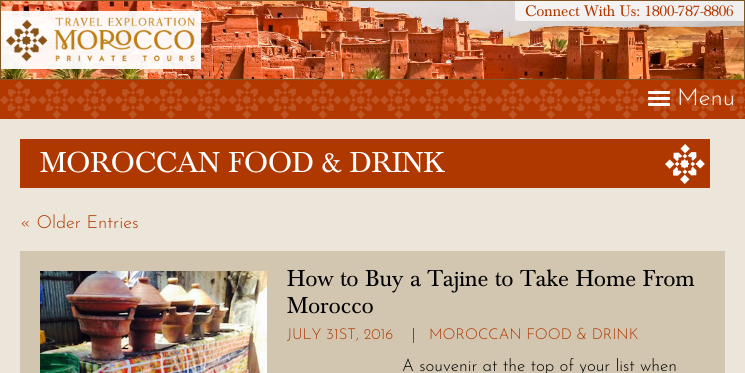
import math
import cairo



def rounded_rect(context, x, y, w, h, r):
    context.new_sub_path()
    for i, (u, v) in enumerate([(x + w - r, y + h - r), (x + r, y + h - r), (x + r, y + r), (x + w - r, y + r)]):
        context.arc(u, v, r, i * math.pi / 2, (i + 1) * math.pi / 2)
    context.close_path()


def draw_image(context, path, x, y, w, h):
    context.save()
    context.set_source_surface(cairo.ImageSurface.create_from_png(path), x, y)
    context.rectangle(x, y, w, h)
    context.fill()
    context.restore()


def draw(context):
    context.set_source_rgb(235 / 255, 229 / 255, 218 / 255)
    context.paint()
    draw_image(context, "images/1.png", 1, 1, 743, 78)
    context.rectangle(0.5, 0.5, 744, 79)
    context.set_source_rgb(128 / 255, 84 / 255, 37 / 255)
    context.set_line_width(1)
    context.stroke()
    context.set_source_rgba(1, 1, 1, 0.94)
    context.rectangle(1, 11, 200, 58)
    context.fill()
    draw_image(context, "images/2.png", 6, 17, 189, 45)
    context.set_source_rgba(1, 1, 1, 0.71)
    context.new_path()
    context.move_to(515, 1)
    context.line_to(744, 1)
    context.line_to(744, 21)
    context.line_to(518, 21)
    context.curve_to(516.5, 21, 515, 19.5, 515, 18)
    context.close_path()
    context.fill()
    context.set_source_rgb(179 / 255, 56 / 255, 0)
    context.rectangle(0, 80, 745, 39)
    context.fill()
    draw_image(context, "images/3.png", 0, 81, 745, 38)
    context.set_source_rgb(1, 1, 1)
    rounded_rect(context, 648, 91, 22, 3, 1)
    context.fill()
    rounded_rect(context, 648, 97, 22, 3, 1)
    context.fill()
    rounded_rect(context, 648, 103, 22, 3, 1)
    context.fill()
    context.set_source_rgb(174 / 255, 56 / 255, 0)
    context.rectangle(20, 139, 690, 49)
    context.fill()
    draw_image(context, "images/4.png", 665, 144, 40, 40)
    context.set_source_rgb(210 / 255, 198 / 255, 177 / 255)
    context.rectangle(20, 251, 705, 122)
    context.fill()
    draw_image(context, "images/5.png", 40, 271, 227, 102)
    context.set_source_rgb(175 / 255, 56 / 255, 0)
    context.rectangle(413, 328, 1, 15)
    context.fill()
    context.select_font_face("Baskerville")
    context.set_font_size(16)
    context.set_source_rgb(180 / 255, 56 / 255, 0)
    context.move_to(525, 16)
    context.show_text("Connect With Us: 1800-787-8806")
    context.select_font_face("Josefin Sans Light")
    context.set_font_size(24)
    context.set_source_rgb(1, 1, 1)
    context.move_to(677, 105)
    context.show_text("Menu")
    context.select_font_face("Baskerville")
    context.set_font_size(30)
    context.move_to(40, 172)
    context.show_text("MOROCCAN FOOD & DRINK")
    context.select_font_face("Josefin Sans Light")
    context.set_font_size(18)
    context.set_source_rgb(174 / 255, 56 / 255, 0)
    context.move_to(20, 228)
    context.show_text("« Older Entries")
    context.select_font_face("Baskerville")
    context.set_font_size(24)
    context.set_source_rgb(0, 0, 0)
    context.move_to(287, 286)
    context.show_text("How to Buy a Tajine to Take Home From")
    context.move_to(287, 313)
    context.show_text("Morocco")
    context.select_font_face("Josefin Sans Light")
    context.set_font_size(15)
    context.set_source_rgb(174 / 255, 56 / 255, 0)
    context.move_to(287, 339)
    context.show_text("JULY 31ST, 2016")
    context.move_to(429, 339)
    context.show_text("MOROCCAN FOOD & DRINK")
    context.set_font_size(17)
    context.set_source_rgb(0, 0, 0)
    context.move_to(402, 371)
    context.show_text("A souvenir at the top of your list when")


surface = cairo.ImageSurface(cairo.Format.RGB24, 745, 373)
context = cairo.Context(surface)
options = cairo.FontOptions()
options.set_hint_metrics(cairo.HintMetrics.OFF)
options.set_hint_style(cairo.HintStyle.NONE)
context.set_font_options(options)
context.set_miter_limit(4)
draw(context)
surface.write_to_png("out.png")
